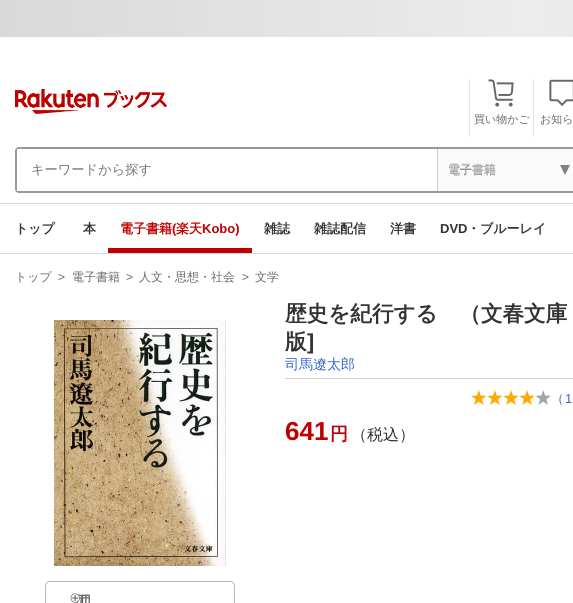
import math
import cairo



def rounded_rect(context, x, y, w, h, r):
    context.new_sub_path()
    for i, (u, v) in enumerate([(x + w - r, y + h - r), (x + r, y + h - r), (x + r, y + r), (x + w - r, y + r)]):
        context.arc(u, v, r, i * math.pi / 2, (i + 1) * math.pi / 2)
    context.close_path()


def draw_image(context, path, x, y, w, h):
    context.save()
    context.set_source_surface(cairo.ImageSurface.create_from_png(path), x, y)
    context.rectangle(x, y, w, h)
    context.fill()
    context.restore()


def draw(context):
    context.set_source_rgb(1, 1, 1)
    context.paint()
    gradient = cairo.LinearGradient(0, 19, 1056, 18)
    gradient.add_color_stop_rgba(0, 217 / 255, 217 / 255, 217 / 255, 1)
    gradient.add_color_stop_rgba(0.5, 236 / 255, 236 / 255, 236 / 255, 1)
    gradient.add_color_stop_rgba(1, 217 / 255, 217 / 255, 217 / 255, 1)
    context.set_source(gradient)
    context.rectangle(0, 0, 573, 37)
    context.fill()
    context.set_source_rgb(217 / 255, 217 / 255, 217 / 255)
    context.rectangle(0, 253, 573, 1)
    context.fill()
    draw_image(context, "images/1.png", 15, 89, 152, 25)
    context.set_source_rgb(230 / 255, 230 / 255, 230 / 255)
    context.rectangle(469, 79, 1, 58)
    context.fill()
    draw_image(context, "images/2.png", 488, 79, 26, 28)
    context.rectangle(533, 79, 1, 58)
    context.fill()
    draw_image(context, "images/3.png", 549, 79, 24, 27)
    rounded_rect(context, 16, 148, 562, 44, 3)
    context.set_source_rgb(153 / 255, 153 / 255, 153 / 255)
    context.stroke()
    context.set_source_rgb(1, 1, 1)
    context.rectangle(17, 149, 2, 42)
    context.fill()
    context.set_source_rgb(250 / 255, 250 / 255, 250 / 255)
    context.rectangle(438, 149, 135, 42)
    context.fill()
    context.set_source_rgb(204 / 255, 204 / 255, 204 / 255)
    context.rectangle(437, 149, 1, 42)
    context.fill()
    context.set_source_rgb(127 / 255, 127 / 255, 127 / 255)
    context.new_path()
    context.move_to(560, 165)
    context.line_to(570, 165)
    context.line_to(565, 175)
    context.close_path()
    context.fill()
    context.set_source_rgb(217 / 255, 217 / 255, 217 / 255)
    context.rectangle(0, 203, 573, 1)
    context.fill()
    context.set_source_rgb(191 / 255, 0, 0)
    context.rectangle(108, 248, 144, 5)
    context.fill()
    draw_image(context, "images/4.png", 54, 320, 172, 246)
    rounded_rect(context, 45.5, 581.5, 189, 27, 4.5)
    context.set_source_rgb(181 / 255, 181 / 255, 181 / 255)
    context.set_line_width(1)
    context.stroke()
    draw_image(context, "images/5.png", 70, 593, 20, 10)
    context.set_source_rgb(209 / 255, 209 / 255, 209 / 255)
    context.rectangle(285, 378, 288, 1)
    context.fill()
    draw_image(context, "images/6.png", 471, 390, 80, 15)
    context.select_font_face("WenQuanYi Zen Hei Medium")
    context.set_font_size(11)
    context.set_source_rgb(105 / 255, 105 / 255, 105 / 255)
    context.move_to(474, 123)
    context.show_text("買い物かご")
    context.move_to(540, 123)
    context.show_text("お知ら")
    context.set_font_size(13.25)
    context.set_source_rgb(117 / 255, 117 / 255, 117 / 255)
    context.move_to(31, 174)
    context.show_text("キーワードから探す")
    context.set_font_size(12)
    context.set_source_rgb(105 / 255, 105 / 255, 105 / 255)
    context.move_to(448, 174)
    context.show_text("電子書籍")
    context.set_source_rgb(196 / 255, 196 / 255, 196 / 255)
    context.move_to(448, 173)
    context.show_text("電子書籍")
    context.select_font_face("WenQuanYi Zen Hei", cairo.FontSlant.NORMAL, cairo.FontWeight.BOLD)
    context.set_font_size(13)
    context.set_source_rgb(51 / 255, 51 / 255, 51 / 255)
    context.move_to(15, 233)
    context.show_text("トップ")
    context.move_to(83, 233)
    context.show_text("本")
    context.set_source_rgb(191 / 255, 0, 0)
    context.move_to(120, 233)
    context.show_text("電子書籍")
    context.select_font_face("Liberation Sans", cairo.FontSlant.NORMAL, cairo.FontWeight.BOLD)
    context.move_to(172, 233)
    context.show_text("(")
    context.select_font_face("WenQuanYi Zen Hei", cairo.FontSlant.NORMAL, cairo.FontWeight.BOLD)
    context.move_to(176, 233)
    context.show_text("楽天")
    context.select_font_face("Liberation Sans", cairo.FontSlant.NORMAL, cairo.FontWeight.BOLD)
    context.move_to(202, 233)
    context.show_text("Kobo)")
    context.select_font_face("WenQuanYi Zen Hei", cairo.FontSlant.NORMAL, cairo.FontWeight.BOLD)
    context.set_source_rgb(51 / 255, 51 / 255, 51 / 255)
    context.move_to(264, 233)
    context.show_text("雑誌")
    context.move_to(314, 233)
    context.show_text("雑誌配信")
    context.move_to(390, 233)
    context.show_text("洋書")
    context.select_font_face("Liberation Sans", cairo.FontSlant.NORMAL, cairo.FontWeight.BOLD)
    context.move_to(440, 233)
    context.show_text("DVD")
    context.select_font_face("WenQuanYi Zen Hei", cairo.FontSlant.NORMAL, cairo.FontWeight.BOLD)
    context.move_to(467, 233)
    context.show_text("・ブルーレイ")
    context.select_font_face("WenQuanYi Zen Hei Medium")
    context.set_font_size(12)
    context.set_source_rgb(105 / 255, 105 / 255, 105 / 255)
    context.move_to(15, 281)
    context.show_text("トップ")
    context.select_font_face("Liberation Sans")
    context.move_to(58, 281)
    context.show_text(">")
    context.select_font_face("WenQuanYi Zen Hei Medium")
    context.move_to(72, 281)
    context.show_text("電子書籍")
    context.select_font_face("Liberation Sans")
    context.move_to(126, 281)
    context.show_text(">")
    context.select_font_face("WenQuanYi Zen Hei Medium")
    context.move_to(139, 281)
    context.show_text("人文・思想・社会")
    context.select_font_face("Liberation Sans")
    context.move_to(242, 281)
    context.show_text(">")
    context.select_font_face("WenQuanYi Zen Hei Medium")
    context.move_to(255, 281)
    context.show_text("文学")
    context.select_font_face("WenQuanYi Zen Hei", cairo.FontSlant.NORMAL, cairo.FontWeight.BOLD)
    context.set_font_size(21.6)
    context.set_source_rgb(51 / 255, 51 / 255, 51 / 255)
    context.move_to(285, 321)
    context.show_text("歴史を紀行する　（文春文庫")
    context.move_to(285, 349)
    context.show_text("版")
    context.select_font_face("Liberation Sans", cairo.FontSlant.NORMAL, cairo.FontWeight.BOLD)
    context.move_to(307, 349)
    context.show_text("]")
    context.select_font_face("WenQuanYi Zen Hei Medium")
    context.set_font_size(14)
    context.set_source_rgb(51 / 255, 102 / 255, 204 / 255)
    context.move_to(285, 369)
    context.show_text("司馬遼太郎")
    context.set_font_size(13)
    context.move_to(551, 403)
    context.show_text("（")
    context.select_font_face("Liberation Sans")
    context.move_to(565, 403)
    context.show_text("1")
    context.select_font_face("Liberation Sans", cairo.FontSlant.NORMAL, cairo.FontWeight.BOLD)
    context.set_font_size(26)
    context.set_source_rgb(191 / 255, 0, 0)
    context.move_to(285, 440)
    context.show_text("641")
    context.select_font_face("WenQuanYi Zen Hei", cairo.FontSlant.NORMAL, cairo.FontWeight.BOLD)
    context.set_font_size(18)
    context.move_to(330, 440)
    context.show_text("円")
    context.select_font_face("WenQuanYi Zen Hei Medium")
    context.set_font_size(16)
    context.set_source_rgb(51 / 255, 51 / 255, 51 / 255)
    context.move_to(351, 440)
    context.show_text("（税込）")


surface = cairo.ImageSurface(cairo.Format.RGB24, 573, 603)
context = cairo.Context(surface)
options = cairo.FontOptions()
options.set_hint_metrics(cairo.HintMetrics.OFF)
options.set_hint_style(cairo.HintStyle.NONE)
context.set_font_options(options)
context.set_miter_limit(4)
draw(context)
surface.write_to_png("out.png")
